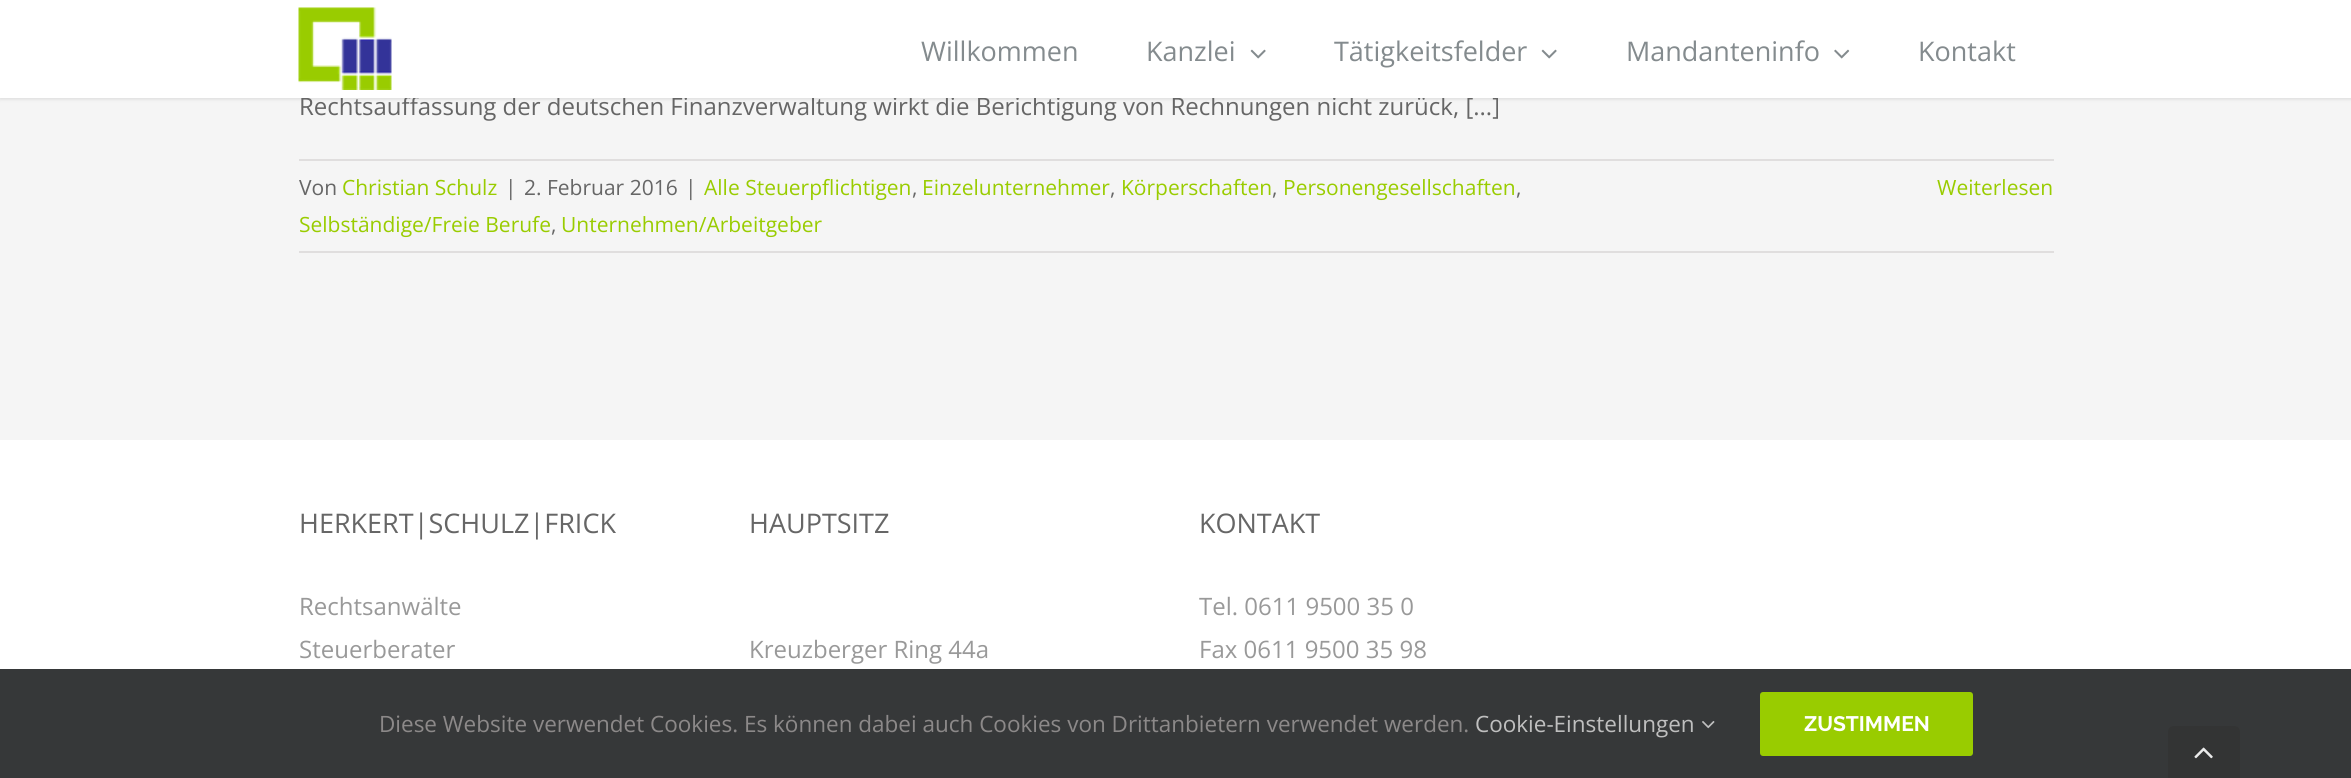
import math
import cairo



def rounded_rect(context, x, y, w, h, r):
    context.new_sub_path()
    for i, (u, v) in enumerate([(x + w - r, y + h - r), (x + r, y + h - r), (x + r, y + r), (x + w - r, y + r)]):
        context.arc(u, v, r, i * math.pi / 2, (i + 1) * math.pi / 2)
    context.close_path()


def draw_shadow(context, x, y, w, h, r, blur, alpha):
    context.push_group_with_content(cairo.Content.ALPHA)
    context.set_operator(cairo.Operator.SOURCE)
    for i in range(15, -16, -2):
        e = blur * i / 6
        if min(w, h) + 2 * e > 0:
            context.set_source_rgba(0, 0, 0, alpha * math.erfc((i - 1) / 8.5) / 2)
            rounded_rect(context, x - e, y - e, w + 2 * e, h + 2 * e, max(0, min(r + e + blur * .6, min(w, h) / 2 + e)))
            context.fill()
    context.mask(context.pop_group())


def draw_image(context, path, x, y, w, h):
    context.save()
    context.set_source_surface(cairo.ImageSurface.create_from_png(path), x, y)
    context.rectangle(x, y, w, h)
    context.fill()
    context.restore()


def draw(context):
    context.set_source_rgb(245 / 255, 245 / 255, 245 / 255)
    context.paint()
    context.set_source_rgb(0, 0, 0)
    draw_shadow(context, 0, 2, 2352, 97, 0, 2, 0.12)
    context.set_source_rgb(224 / 255, 222 / 255, 222 / 255)
    context.rectangle(299, 159, 1755, 2)
    context.fill()
    context.rectangle(299, 251, 1755, 2)
    context.fill()
    context.set_source_rgb(1, 1, 1)
    context.rectangle(0, 440, 2351, 229)
    context.fill()
    context.set_source_rgb(54 / 255, 56 / 255, 57 / 255)
    context.rectangle(0, 669, 2351, 109)
    context.fill()
    draw_image(context, "images/4.png", 1702, 721, 13, 8)
    context.set_source_rgb(153 / 255, 204 / 255, 0)
    rounded_rect(context, 1760, 692, 213, 64, 3)
    context.fill()
    context.set_source_rgb(51 / 255, 52 / 255, 52 / 255)
    context.new_path()
    context.move_to(2174, 726)
    context.line_to(2234, 726)
    context.curve_to(2237.5, 726, 2240, 728.5, 2240, 732)
    context.line_to(2240, 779)
    context.line_to(2168, 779)
    context.line_to(2168, 732)
    context.curve_to(2168, 728.5, 2170.5, 726, 2174, 726)
    context.close_path()
    context.fill()
    draw_image(context, "images/5.png", 2194, 747, 19, 12)
    context.select_font_face("Open Sans")
    context.set_font_size(24)
    context.set_source_rgb(102 / 255, 102 / 255, 102 / 255)
    context.move_to(299, 115)
    context.show_text("Rechtsauffassung der deutschen Finanzverwaltung wirkt die Berichtigung von Rechnungen nicht zurück, [...]")
    context.set_source_rgb(1, 1, 1)
    context.rectangle(0, 0, 2351, 98)
    context.fill()
    context.set_font_size(27)
    context.set_source_rgb(132 / 255, 139 / 255, 142 / 255)
    context.move_to(1918, 61)
    context.show_text("Kontakt")
    draw_image(context, "images/3.png", 1834, 49, 16, 10)
    context.move_to(1626, 61)
    context.show_text("Mandanteninfo")
    draw_image(context, "images/2.png", 1541, 49, 16, 10)
    context.move_to(1334, 61)
    context.show_text("Tätigkeitsfelder")
    draw_image(context, "images/2.png", 1250, 49, 16, 10)
    context.move_to(1146, 61)
    context.show_text("Kanzlei")
    context.move_to(921, 61)
    context.show_text("Willkommen")
    draw_image(context, "images/1.png", 298, 7, 94, 83)
    context.set_font_size(21)
    context.set_source_rgb(102 / 255, 102 / 255, 102 / 255)
    context.move_to(299, 195)
    context.show_text("Von")
    context.set_source_rgb(153 / 255, 204 / 255, 0)
    context.move_to(342, 195)
    context.show_text("Christian Schulz")
    context.set_source_rgb(102 / 255, 102 / 255, 102 / 255)
    context.move_to(505, 195)
    context.show_text("|")
    context.move_to(524, 195)
    context.show_text("2. Februar 2016")
    context.move_to(685, 195)
    context.show_text("|")
    context.set_source_rgb(153 / 255, 204 / 255, 0)
    context.move_to(704, 195)
    context.show_text("Alle Steuerpflichtigen")
    context.set_source_rgb(102 / 255, 102 / 255, 102 / 255)
    context.move_to(912, 195)
    context.show_text(",")
    context.set_source_rgb(153 / 255, 204 / 255, 0)
    context.move_to(922, 195)
    context.show_text("Einzelunternehmer")
    context.set_source_rgb(102 / 255, 102 / 255, 102 / 255)
    context.move_to(1110, 195)
    context.show_text(",")
    context.set_source_rgb(153 / 255, 204 / 255, 0)
    context.move_to(1121, 195)
    context.show_text("Körperschaften")
    context.set_source_rgb(102 / 255, 102 / 255, 102 / 255)
    context.move_to(1272, 195)
    context.show_text(",")
    context.set_source_rgb(153 / 255, 204 / 255, 0)
    context.move_to(1283, 195)
    context.show_text("Personengesellschaften")
    context.set_source_rgb(102 / 255, 102 / 255, 102 / 255)
    context.move_to(1516, 195)
    context.show_text(",")
    context.set_source_rgb(153 / 255, 204 / 255, 0)
    context.move_to(299, 232)
    context.show_text("Selbständige/Freie Berufe")
    context.set_source_rgb(102 / 255, 102 / 255, 102 / 255)
    context.move_to(551, 232)
    context.show_text(",")
    context.set_source_rgb(153 / 255, 204 / 255, 0)
    context.move_to(561, 232)
    context.show_text("Unternehmen/Arbeitgeber")
    context.move_to(1937, 195)
    context.show_text("Weiterlesen")
    context.set_font_size(27)
    context.set_source_rgb(102 / 255, 102 / 255, 102 / 255)
    context.move_to(299, 533)
    context.show_text("HERKERT|SCHULZ|FRICK")
    context.set_font_size(24)
    context.set_source_rgb(153 / 255, 153 / 255, 153 / 255)
    context.move_to(299, 615)
    context.show_text("Rechtsanwälte")
    context.move_to(299, 658)
    context.show_text("Steuerberater")
    context.set_font_size(27)
    context.set_source_rgb(102 / 255, 102 / 255, 102 / 255)
    context.move_to(749, 533)
    context.show_text("HAUPTSITZ")
    context.set_font_size(24)
    context.set_source_rgb(153 / 255, 153 / 255, 153 / 255)
    context.move_to(749, 658)
    context.show_text("Kreuzberger Ring 44a")
    context.set_font_size(27)
    context.set_source_rgb(102 / 255, 102 / 255, 102 / 255)
    context.move_to(1199, 533)
    context.show_text("KONTAKT")
    context.set_font_size(24)
    context.set_source_rgb(153 / 255, 153 / 255, 153 / 255)
    context.move_to(1199, 615)
    context.show_text("Tel. 0611 9500 35 0")
    context.move_to(1199, 658)
    context.show_text("Fax 0611 9500 35 98")
    context.set_font_size(22.5)
    context.set_source_rgb(140 / 255, 137 / 255, 137 / 255)
    context.move_to(379, 732)
    context.show_text("Diese Website verwendet Cookies. Es können dabei auch Cookies von Drittanbietern verwendet werden.")
    context.set_source_rgb(191 / 255, 191 / 255, 191 / 255)
    context.move_to(1475, 732)
    context.show_text("Cookie-Einstellungen")
    context.select_font_face("Raleway Thin")
    context.set_font_size(21)
    context.set_source_rgb(1, 1, 1)
    context.move_to(1804, 731)
    context.show_text("ZUSTIMMEN")


surface = cairo.ImageSurface(cairo.Format.RGB24, 2351, 778)
context = cairo.Context(surface)
options = cairo.FontOptions()
options.set_hint_metrics(cairo.HintMetrics.OFF)
options.set_hint_style(cairo.HintStyle.NONE)
context.set_font_options(options)
context.set_miter_limit(4)
draw(context)
surface.write_to_png("out.png")
